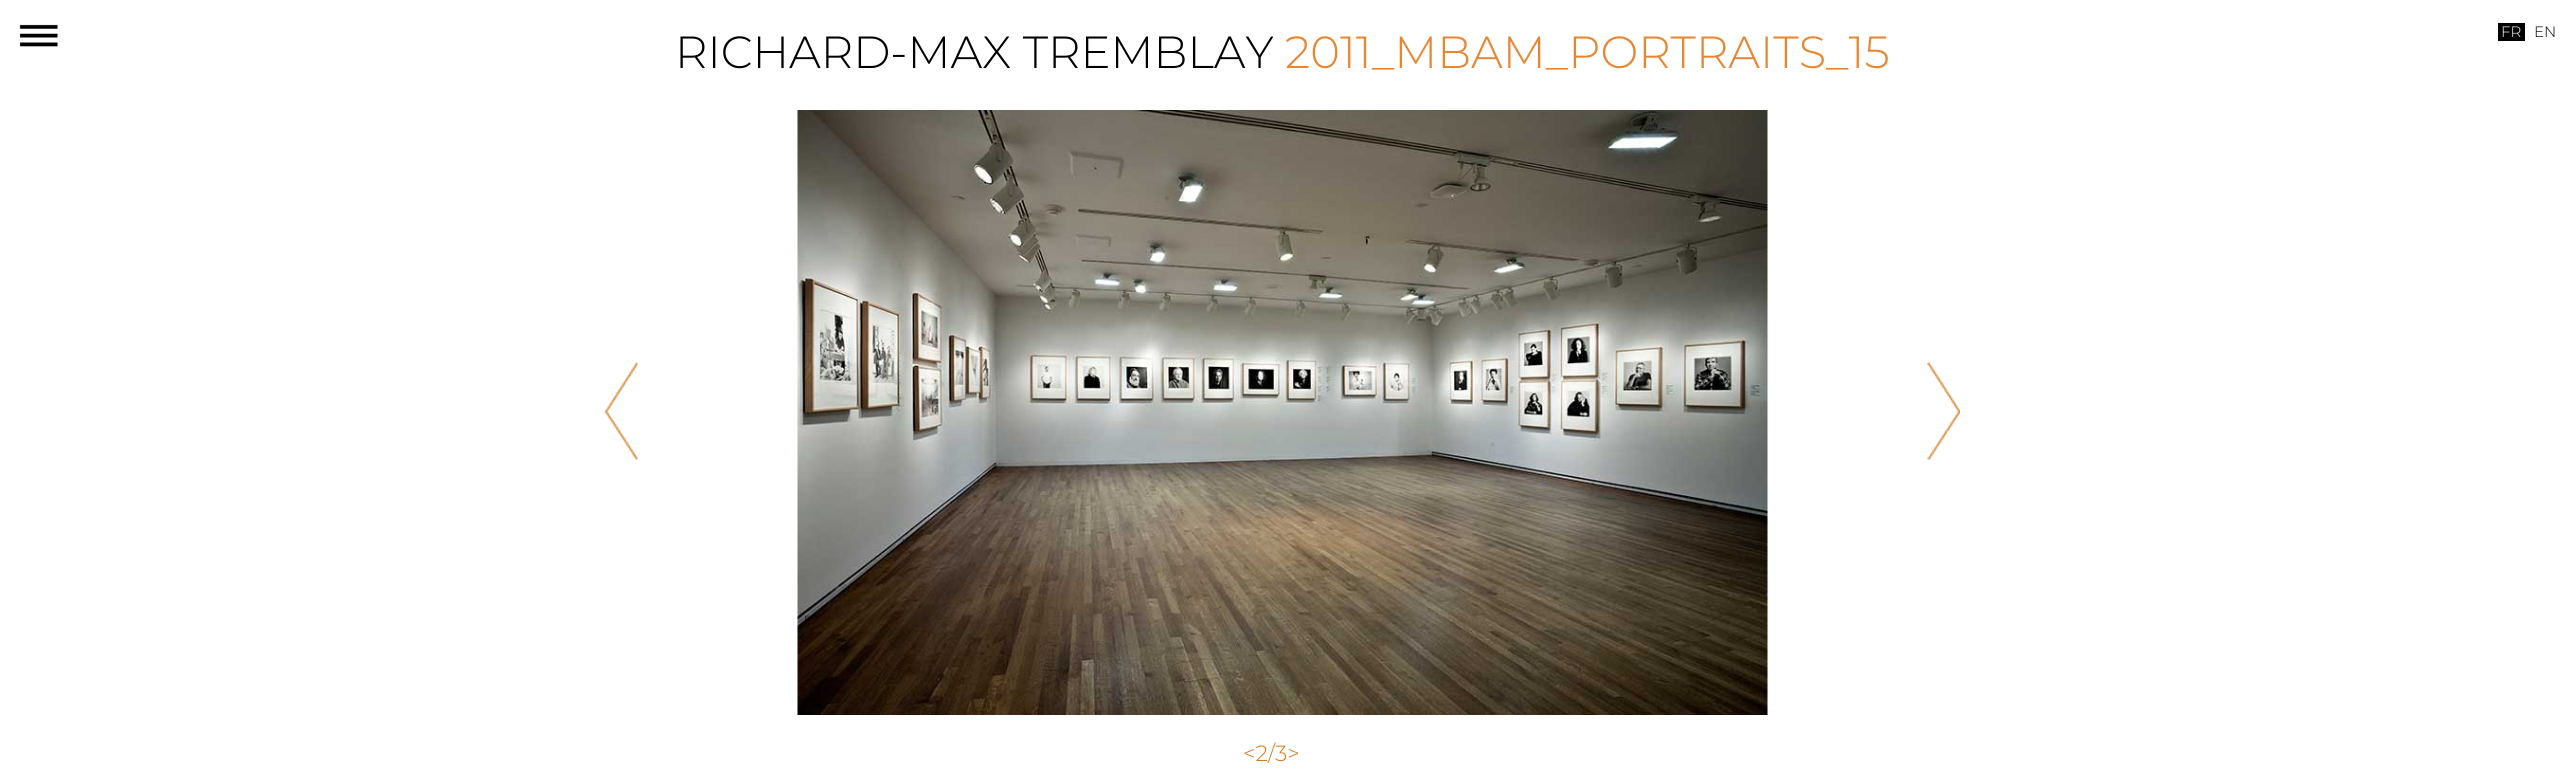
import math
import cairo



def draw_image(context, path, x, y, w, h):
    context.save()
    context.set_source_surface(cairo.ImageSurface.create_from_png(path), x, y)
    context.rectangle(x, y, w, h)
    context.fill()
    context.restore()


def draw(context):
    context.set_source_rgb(1, 1, 1)
    context.paint()
    draw_image(context, "images/1.png", 19, 24, 40, 23)
    context.set_source_rgb(0, 0, 0)
    context.rectangle(2498, 23, 27, 18)
    context.fill()
    draw_image(context, "images/2.png", 605, 362, 33, 98)
    draw_image(context, "images/3.png", 797, 110, 971, 605)
    draw_image(context, "images/4.png", 1927, 362, 33, 98)
    context.select_font_face("Montserrat Light")
    context.set_font_size(15)
    context.set_source_rgb(1, 1, 1)
    context.move_to(2501, 37)
    context.show_text("FR")
    context.set_source_rgb(0, 0, 0)
    context.move_to(2534, 37)
    context.show_text("EN")
    context.set_font_size(45)
    context.move_to(675, 68)
    context.show_text("RICHARD-MAX TREMBLAY")
    context.set_source_rgb(233 / 255, 133 / 255, 48 / 255)
    context.move_to(1285, 68)
    context.show_text("2011_MBAM_PORTRAITS_15")
    context.set_font_size(22)
    context.set_source_rgb(214 / 255, 123 / 255, 26 / 255)
    context.move_to(1243, 761)
    context.show_text("<2/3>")


surface = cairo.ImageSurface(cairo.Format.RGB24, 2564, 769)
context = cairo.Context(surface)
options = cairo.FontOptions()
options.set_hint_metrics(cairo.HintMetrics.OFF)
options.set_hint_style(cairo.HintStyle.NONE)
context.set_font_options(options)
context.set_miter_limit(4)
draw(context)
surface.write_to_png("out.png")
